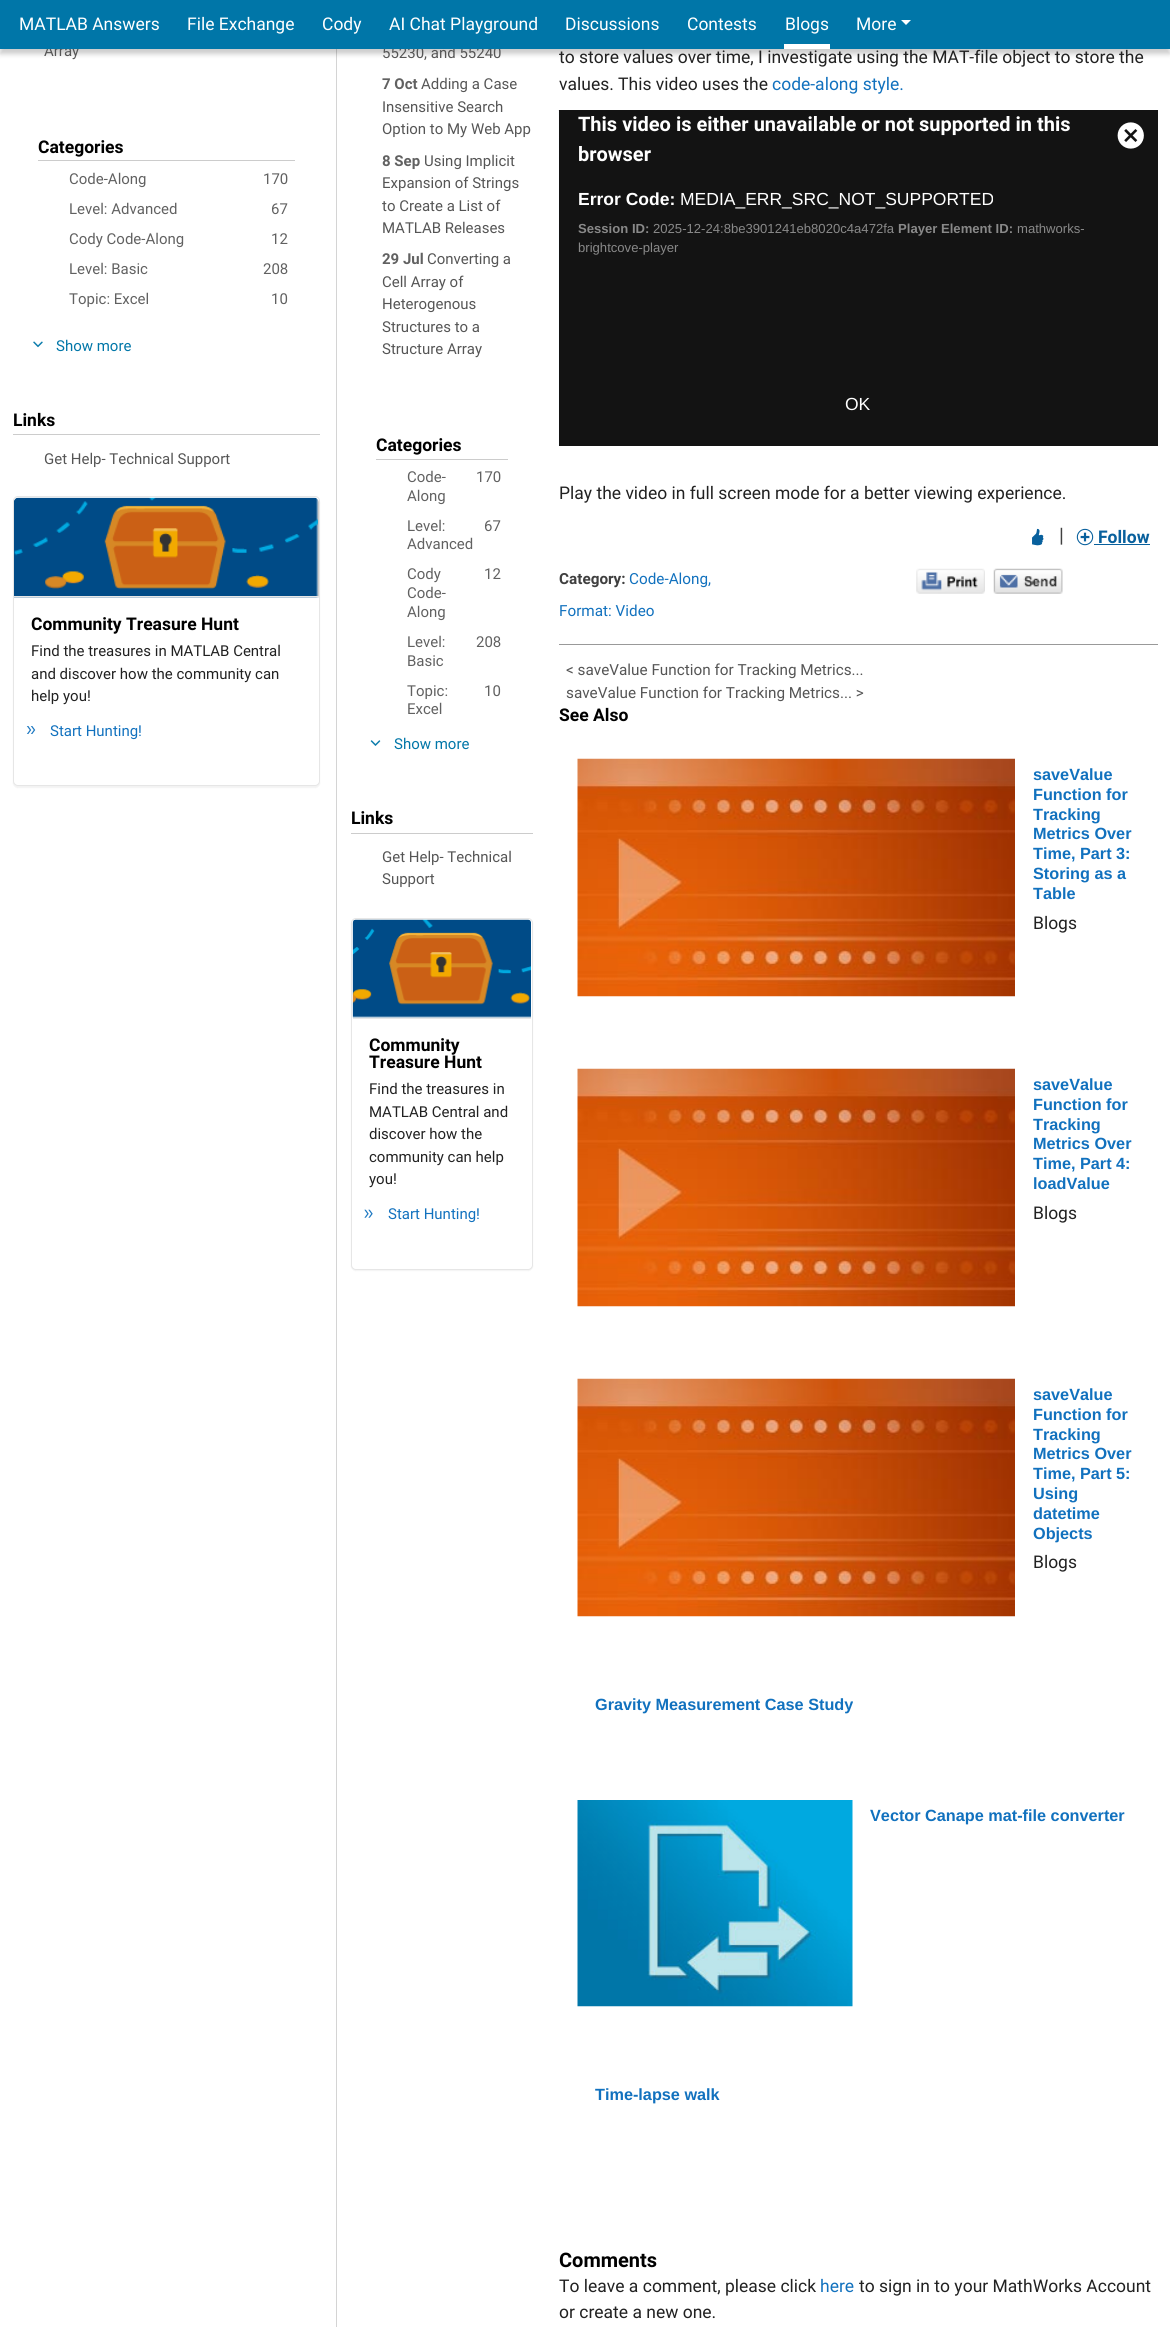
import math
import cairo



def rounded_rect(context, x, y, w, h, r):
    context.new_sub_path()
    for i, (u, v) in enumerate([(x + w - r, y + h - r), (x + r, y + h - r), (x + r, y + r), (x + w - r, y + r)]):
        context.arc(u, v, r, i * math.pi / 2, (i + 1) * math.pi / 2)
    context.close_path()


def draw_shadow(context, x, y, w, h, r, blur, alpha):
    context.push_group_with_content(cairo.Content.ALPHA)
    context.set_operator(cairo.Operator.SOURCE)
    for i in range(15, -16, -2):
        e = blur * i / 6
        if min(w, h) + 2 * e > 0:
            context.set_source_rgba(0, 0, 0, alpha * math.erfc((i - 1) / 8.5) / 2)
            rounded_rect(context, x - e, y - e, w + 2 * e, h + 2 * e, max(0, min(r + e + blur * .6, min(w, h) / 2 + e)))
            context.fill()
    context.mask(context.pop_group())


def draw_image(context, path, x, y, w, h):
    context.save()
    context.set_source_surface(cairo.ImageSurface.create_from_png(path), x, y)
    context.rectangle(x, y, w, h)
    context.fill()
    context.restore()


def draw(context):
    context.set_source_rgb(1, 1, 1)
    context.paint()
    context.set_source_rgb(212 / 255, 212 / 255, 212 / 255)
    context.rectangle(336, 49, 1, 2278)
    context.fill()
    context.set_source_rgb(0, 0, 0)
    draw_shadow(context, 0, 4, 1170, 50, 0, 2.5, 0.2)
    context.set_source_rgb(204 / 255, 204 / 255, 204 / 255)
    context.rectangle(38, 160, 257, 1)
    context.fill()
    draw_image(context, "images/1.png", 33, 341, 10, 7)
    context.rectangle(13, 434, 307, 1)
    context.fill()
    context.set_source_rgb(0, 0, 0)
    draw_shadow(context, 13, 498, 307, 290, 5, 0.5, 0.05)
    context.set_source_rgb(1, 1, 1)
    rounded_rect(context, 13.5, 496.5, 306, 289, 4.5)
    context.fill_preserve()
    context.set_source_rgb(230 / 255, 230 / 255, 230 / 255)
    context.set_line_width(1)
    context.stroke()
    context.save()
    rounded_rect(context, 14, 498, 305, 287, 4)
    context.clip()
    context.set_source_rgb(245 / 255, 245 / 255, 245 / 255)
    context.new_path()
    context.move_to(19, 498)
    context.line_to(314, 498)
    context.curve_to(317, 498, 319, 500, 319, 503)
    context.line_to(319, 598)
    context.line_to(14, 598)
    context.line_to(14, 503)
    context.curve_to(14, 500, 16, 498, 19, 498)
    context.close_path()
    context.fill()
    context.restore()
    draw_image(context, "images/2.png", 14, 497, 305, 101)
    context.rectangle(14, 596, 305, 1)
    context.fill()
    draw_image(context, "images/3.png", 26, 726, 10, 8)
    context.set_source_rgb(204 / 255, 204 / 255, 204 / 255)
    context.rectangle(376, 459, 132, 1)
    context.fill()
    draw_image(context, "images/4.png", 370, 740, 11, 6)
    context.rectangle(351, 833, 182, 1)
    context.fill()
    context.set_source_rgb(0, 0, 0)
    draw_shadow(context, 351, 919, 182, 352, 5, 0.5, 0.05)
    context.set_source_rgb(1, 1, 1)
    rounded_rect(context, 351.5, 918.5, 181, 351, 4.5)
    context.fill_preserve()
    context.set_source_rgb(230 / 255, 230 / 255, 230 / 255)
    context.stroke()
    context.save()
    rounded_rect(context, 353, 919, 178, 350, 4)
    context.clip()
    context.set_source_rgb(245 / 255, 245 / 255, 245 / 255)
    context.new_path()
    context.move_to(358, 919)
    context.line_to(526, 919)
    context.curve_to(529, 919, 531, 921, 531, 924)
    context.line_to(531, 1019)
    context.line_to(353, 1019)
    context.line_to(353, 924)
    context.curve_to(353, 921, 355, 919, 358, 919)
    context.close_path()
    context.fill()
    context.restore()
    draw_image(context, "images/5.png", 352, 919, 179, 99)
    context.rectangle(353, 1018, 178, 1)
    context.fill()
    draw_image(context, "images/6.png", 364, 1209, 9, 9)
    draw_image(context, "images/7.png", 558, 110, 1, 336)
    draw_image(context, "images/8.png", 558, 110, 1, 336)
    context.set_source_rgb(19 / 255, 19 / 255, 19 / 255)
    context.rectangle(559, 110, 599, 336)
    context.fill()
    draw_image(context, "images/9.png", 1117, 122, 27, 27)
    draw_image(context, "images/10.png", 1032, 528, 12, 18)
    draw_image(context, "images/11.png", 1076, 528, 18, 18)
    context.set_source_rgb(8 / 255, 96 / 255, 157 / 255)
    context.rectangle(1094, 544, 56, 1)
    context.fill()
    context.set_source_rgb(153 / 255, 153 / 255, 153 / 255)
    context.rectangle(559, 644, 599, 1)
    context.fill()
    draw_image(context, "images/12.png", 916, 568, 69, 26)
    draw_image(context, "images/13.png", 993, 568, 70, 26)
    draw_image(context, "images/14.png", 577, 758, 438, 239)
    draw_image(context, "images/14.png", 577, 1068, 438, 239)
    draw_image(context, "images/15.png", 577, 1378, 438, 239)
    draw_image(context, "images/16.png", 577, 1800, 276, 207)
    context.select_font_face("Roboto")
    context.set_font_size(15)
    context.set_source_rgb(85 / 255, 85 / 255, 85 / 255)
    context.move_to(44, 56)
    context.show_text("Array")
    context.select_font_face("Roboto", cairo.FontSlant.NORMAL, cairo.FontWeight.BOLD)
    context.set_font_size(17.5)
    context.set_source_rgb(0, 0, 0)
    context.move_to(38, 153)
    context.show_text("Categories")
    context.select_font_face("Roboto")
    context.set_font_size(15)
    context.set_source_rgb(97 / 255, 97 / 255, 97 / 255)
    context.move_to(69, 184)
    context.show_text("Code-Along")
    context.move_to(263, 184)
    context.show_text("170")
    context.move_to(69, 214)
    context.show_text("Level: Advanced")
    context.move_to(271, 214)
    context.show_text("67")
    context.move_to(69, 244)
    context.show_text("Cody Code-Along")
    context.move_to(271, 244)
    context.show_text("12")
    context.move_to(69, 274)
    context.show_text("Level: Basic")
    context.move_to(263, 274)
    context.show_text("208")
    context.move_to(69, 304)
    context.show_text("Topic: Excel")
    context.move_to(271, 304)
    context.show_text("10")
    context.set_source_rgb(0, 118 / 255, 168 / 255)
    context.move_to(56, 351)
    context.show_text("Show more")
    context.select_font_face("Roboto", cairo.FontSlant.NORMAL, cairo.FontWeight.BOLD)
    context.set_font_size(17.5)
    context.set_source_rgb(0, 0, 0)
    context.move_to(13, 426)
    context.show_text("Links")
    context.select_font_face("Roboto")
    context.set_font_size(15)
    context.set_source_rgb(85 / 255, 85 / 255, 85 / 255)
    context.move_to(44, 464)
    context.show_text("Get Help- Technical Support")
    context.select_font_face("Roboto", cairo.FontSlant.NORMAL, cairo.FontWeight.BOLD)
    context.set_font_size(17.5)
    context.set_source_rgb(0, 0, 0)
    context.move_to(31, 630)
    context.show_text("Community Treasure Hunt")
    context.select_font_face("Roboto")
    context.set_font_size(15)
    context.set_source_rgb(33 / 255, 33 / 255, 33 / 255)
    context.move_to(31, 656)
    context.show_text("Find the treasures in MATLAB Central")
    context.move_to(31, 679)
    context.show_text("and discover how the community can")
    context.move_to(31, 701)
    context.show_text("help you!")
    context.set_source_rgb(17 / 255, 113 / 255, 190 / 255)
    context.move_to(50, 736)
    context.show_text("Start Hunting!")
    context.set_source_rgb(85 / 255, 85 / 255, 85 / 255)
    context.move_to(382, 58)
    context.show_text("55230, and 55240")
    context.set_source_rgb(0, 118 / 255, 168 / 255)
    context.rectangle(0, 0, 1170, 49)
    context.fill()
    context.set_source_rgb(1, 1, 1)
    context.new_path()
    context.move_to(901, 20)
    context.line_to(911, 20)
    context.line_to(906, 25)
    context.close_path()
    context.fill()
    context.set_font_size(17.5)
    context.move_to(856, 30)
    context.show_text("More")
    context.move_to(785, 30)
    context.show_text("Blogs")
    context.rectangle(784, 44, 46, 5)
    context.fill()
    context.move_to(687, 30)
    context.show_text("Contests")
    context.move_to(565, 30)
    context.show_text("Discussions")
    context.move_to(389, 30)
    context.show_text("AI Chat Playground")
    context.move_to(322, 30)
    context.show_text("Cody")
    context.move_to(187, 30)
    context.show_text("File Exchange")
    context.move_to(19, 30)
    context.show_text("MATLAB Answers")
    context.select_font_face("Roboto", cairo.FontSlant.NORMAL, cairo.FontWeight.BOLD)
    context.set_font_size(15)
    context.set_source_rgb(97 / 255, 97 / 255, 97 / 255)
    context.move_to(382, 89)
    context.show_text("7 Oct")
    context.select_font_face("Roboto")
    context.set_source_rgb(85 / 255, 85 / 255, 85 / 255)
    context.move_to(421, 89)
    context.show_text("Adding a Case")
    context.move_to(382, 112)
    context.show_text("Insensitive Search")
    context.move_to(382, 134)
    context.show_text("Option to My Web App")
    context.select_font_face("Roboto", cairo.FontSlant.NORMAL, cairo.FontWeight.BOLD)
    context.set_source_rgb(97 / 255, 97 / 255, 97 / 255)
    context.move_to(382, 166)
    context.show_text("8 Sep")
    context.select_font_face("Roboto")
    context.set_source_rgb(85 / 255, 85 / 255, 85 / 255)
    context.move_to(424, 166)
    context.show_text("Using Implicit")
    context.move_to(382, 188)
    context.show_text("Expansion of Strings")
    context.move_to(382, 211)
    context.show_text("to Create a List of")
    context.move_to(382, 233)
    context.show_text("MATLAB Releases")
    context.select_font_face("Roboto", cairo.FontSlant.NORMAL, cairo.FontWeight.BOLD)
    context.set_source_rgb(97 / 255, 97 / 255, 97 / 255)
    context.move_to(382, 264)
    context.show_text("29 Jul")
    context.select_font_face("Roboto")
    context.set_source_rgb(85 / 255, 85 / 255, 85 / 255)
    context.move_to(427, 264)
    context.show_text("Converting a")
    context.move_to(382, 287)
    context.show_text("Cell Array of")
    context.move_to(382, 309)
    context.show_text("Heterogenous")
    context.move_to(382, 332)
    context.show_text("Structures to a")
    context.move_to(382, 354)
    context.show_text("Structure Array")
    context.select_font_face("Roboto", cairo.FontSlant.NORMAL, cairo.FontWeight.BOLD)
    context.set_font_size(17.5)
    context.set_source_rgb(0, 0, 0)
    context.move_to(376, 451)
    context.show_text("Categories")
    context.select_font_face("Roboto")
    context.set_font_size(15)
    context.set_source_rgb(97 / 255, 97 / 255, 97 / 255)
    context.move_to(407, 482)
    context.show_text("Code-")
    context.move_to(476, 482)
    context.show_text("170")
    context.move_to(407, 501)
    context.show_text("Along")
    context.move_to(407, 531)
    context.show_text("Level:")
    context.move_to(484, 531)
    context.show_text("67")
    context.move_to(407, 549)
    context.show_text("Advanced")
    context.move_to(407, 579)
    context.show_text("Cody")
    context.move_to(484, 579)
    context.show_text("12")
    context.move_to(407, 598)
    context.show_text("Code-")
    context.move_to(407, 617)
    context.show_text("Along")
    context.move_to(407, 647)
    context.show_text("Level:")
    context.move_to(476, 647)
    context.show_text("208")
    context.move_to(407, 666)
    context.show_text("Basic")
    context.move_to(407, 696)
    context.show_text("Topic:")
    context.move_to(484, 696)
    context.show_text("10")
    context.move_to(407, 714)
    context.show_text("Excel")
    context.set_source_rgb(0, 118 / 255, 168 / 255)
    context.move_to(394, 749)
    context.show_text("Show more")
    context.select_font_face("Roboto", cairo.FontSlant.NORMAL, cairo.FontWeight.BOLD)
    context.set_font_size(17.5)
    context.set_source_rgb(0, 0, 0)
    context.move_to(351, 824)
    context.show_text("Links")
    context.select_font_face("Roboto")
    context.set_font_size(15)
    context.set_source_rgb(85 / 255, 85 / 255, 85 / 255)
    context.move_to(382, 862)
    context.show_text("Get Help- Technical")
    context.move_to(382, 884)
    context.show_text("Support")
    context.select_font_face("Roboto", cairo.FontSlant.NORMAL, cairo.FontWeight.BOLD)
    context.set_font_size(17.5)
    context.set_source_rgb(0, 0, 0)
    context.move_to(369, 1051)
    context.show_text("Community")
    context.move_to(369, 1068)
    context.show_text("Treasure Hunt")
    context.select_font_face("Roboto")
    context.set_font_size(15)
    context.set_source_rgb(33 / 255, 33 / 255, 33 / 255)
    context.move_to(369, 1094)
    context.show_text("Find the treasures in")
    context.move_to(369, 1117)
    context.show_text("MATLAB Central and")
    context.move_to(369, 1139)
    context.show_text("discover how the")
    context.move_to(369, 1162)
    context.show_text("community can help")
    context.move_to(369, 1184)
    context.show_text("you!")
    context.set_source_rgb(17 / 255, 113 / 255, 190 / 255)
    context.move_to(388, 1219)
    context.show_text("Start Hunting!")
    context.set_font_size(17.5)
    context.set_source_rgb(33 / 255, 33 / 255, 33 / 255)
    context.move_to(559, 63)
    context.show_text("to store values over time, I investigate using the MAT-file object to store the")
    context.move_to(559, 90)
    context.show_text("values. This video uses the")
    context.set_source_rgb(17 / 255, 113 / 255, 190 / 255)
    context.move_to(772, 90)
    context.show_text("code-along style.")
    context.select_font_face("Roboto", cairo.FontSlant.NORMAL, cairo.FontWeight.BOLD)
    context.set_font_size(20)
    context.set_source_rgb(1, 1, 1)
    context.move_to(578, 131)
    context.show_text("This video is either unavailable or not supported in this")
    context.move_to(578, 161)
    context.show_text("browser")
    context.select_font_face("Liberation Sans", cairo.FontSlant.NORMAL, cairo.FontWeight.BOLD)
    context.set_font_size(17.5)
    context.move_to(578, 205)
    context.show_text("Error Code:")
    context.select_font_face("Liberation Sans")
    context.move_to(680, 205)
    context.show_text("MEDIA_ERR_SRC_NOT_SUPPORTED")
    context.select_font_face("Liberation Sans", cairo.FontSlant.NORMAL, cairo.FontWeight.BOLD)
    context.set_font_size(13.1)
    context.set_source_rgb(137 / 255, 137 / 255, 137 / 255)
    context.move_to(578, 233)
    context.show_text("Session ID:")
    context.select_font_face("Liberation Sans")
    context.move_to(653, 233)
    context.show_text("2025-12-24:8be3901241eb8020c4a472fa")
    context.select_font_face("Liberation Sans", cairo.FontSlant.NORMAL, cairo.FontWeight.BOLD)
    context.move_to(898, 233)
    context.show_text("Player Element ID:")
    context.select_font_face("Liberation Sans")
    context.move_to(1017, 233)
    context.show_text("mathworks-")
    context.move_to(578, 252)
    context.show_text("brightcove-player")
    context.set_font_size(17.5)
    context.set_source_rgb(1, 1, 1)
    context.move_to(845, 410)
    context.show_text("OK")
    context.select_font_face("Roboto")
    context.set_source_rgb(33 / 255, 33 / 255, 33 / 255)
    context.move_to(559, 499)
    context.show_text("Play the video in full screen mode for a better viewing experience.")
    context.set_font_size(20)
    context.set_source_rgb(64 / 255, 64 / 255, 64 / 255)
    context.move_to(1059, 542)
    context.show_text("|")
    context.select_font_face("Roboto", cairo.FontSlant.NORMAL, cairo.FontWeight.BOLD)
    context.set_font_size(17.5)
    context.set_source_rgb(8 / 255, 96 / 255, 157 / 255)
    context.move_to(1098, 543)
    context.show_text("Follow")
    context.set_font_size(15.3)
    context.set_source_rgb(64 / 255, 64 / 255, 64 / 255)
    context.move_to(559, 584)
    context.show_text("Category:")
    context.select_font_face("Roboto")
    context.set_source_rgb(17 / 255, 113 / 255, 190 / 255)
    context.move_to(629, 584)
    context.show_text("Code-Along,")
    context.move_to(559, 616)
    context.show_text("Format: Video")
    context.set_source_rgb(85 / 255, 85 / 255, 85 / 255)
    context.move_to(566, 675)
    context.show_text("< saveValue Function for Tracking Metrics...")
    context.move_to(566, 698)
    context.show_text("saveValue Function for Tracking Metrics... >")
    context.select_font_face("Roboto", cairo.FontSlant.NORMAL, cairo.FontWeight.BOLD)
    context.set_font_size(17.5)
    context.set_source_rgb(0, 0, 0)
    context.move_to(559, 721)
    context.show_text("See Also")
    context.select_font_face("Liberation Sans", cairo.FontSlant.NORMAL, cairo.FontWeight.BOLD)
    context.set_font_size(16.25)
    context.set_source_rgb(17 / 255, 113 / 255, 190 / 255)
    context.move_to(1033, 780)
    context.show_text("saveValue")
    context.move_to(1033, 800)
    context.show_text("Function for")
    context.move_to(1033, 820)
    context.show_text("Tracking")
    context.move_to(1033, 839)
    context.show_text("Metrics Over")
    context.move_to(1033, 859)
    context.show_text("Time, Part 3:")
    context.move_to(1033, 879)
    context.show_text("Storing as a")
    context.move_to(1033, 899)
    context.show_text("Table")
    context.select_font_face("Roboto")
    context.set_font_size(17.5)
    context.set_source_rgb(33 / 255, 33 / 255, 33 / 255)
    context.move_to(1033, 929)
    context.show_text("Blogs")
    context.select_font_face("Liberation Sans", cairo.FontSlant.NORMAL, cairo.FontWeight.BOLD)
    context.set_font_size(16.25)
    context.set_source_rgb(17 / 255, 113 / 255, 190 / 255)
    context.move_to(1033, 1090)
    context.show_text("saveValue")
    context.move_to(1033, 1110)
    context.show_text("Function for")
    context.move_to(1033, 1130)
    context.show_text("Tracking")
    context.move_to(1033, 1149)
    context.show_text("Metrics Over")
    context.move_to(1033, 1169)
    context.show_text("Time, Part 4:")
    context.move_to(1033, 1189)
    context.show_text("loadValue")
    context.select_font_face("Roboto")
    context.set_font_size(17.5)
    context.set_source_rgb(33 / 255, 33 / 255, 33 / 255)
    context.move_to(1033, 1219)
    context.show_text("Blogs")
    context.select_font_face("Liberation Sans", cairo.FontSlant.NORMAL, cairo.FontWeight.BOLD)
    context.set_font_size(16.25)
    context.set_source_rgb(17 / 255, 113 / 255, 190 / 255)
    context.move_to(1033, 1400)
    context.show_text("saveValue")
    context.move_to(1033, 1420)
    context.show_text("Function for")
    context.move_to(1033, 1440)
    context.show_text("Tracking")
    context.move_to(1033, 1459)
    context.show_text("Metrics Over")
    context.move_to(1033, 1479)
    context.show_text("Time, Part 5:")
    context.move_to(1033, 1499)
    context.show_text("Using")
    context.move_to(1033, 1519)
    context.show_text("datetime")
    context.move_to(1033, 1539)
    context.show_text("Objects")
    context.select_font_face("Roboto")
    context.set_font_size(17.5)
    context.set_source_rgb(33 / 255, 33 / 255, 33 / 255)
    context.move_to(1033, 1568)
    context.show_text("Blogs")
    context.select_font_face("Liberation Sans", cairo.FontSlant.NORMAL, cairo.FontWeight.BOLD)
    context.set_font_size(16.25)
    context.set_source_rgb(17 / 255, 113 / 255, 190 / 255)
    context.move_to(595, 1710)
    context.show_text("Gravity Measurement Case Study")
    context.move_to(870, 1821)
    context.show_text("Vector Canape mat-file converter")
    context.move_to(595, 2100)
    context.show_text("Time-lapse walk")
    context.select_font_face("Roboto", cairo.FontSlant.NORMAL, cairo.FontWeight.BOLD)
    context.set_font_size(20)
    context.set_source_rgb(0, 0, 0)
    context.move_to(559, 2267)
    context.show_text("Comments")
    context.select_font_face("Roboto")
    context.set_font_size(17.5)
    context.set_source_rgb(33 / 255, 33 / 255, 33 / 255)
    context.move_to(559, 2292)
    context.show_text("To leave a comment, please click")
    context.set_source_rgb(17 / 255, 113 / 255, 190 / 255)
    context.move_to(820, 2292)
    context.show_text("here")
    context.set_source_rgb(33 / 255, 33 / 255, 33 / 255)
    context.move_to(859, 2292)
    context.show_text("to sign in to your MathWorks Account")
    context.move_to(559, 2318)
    context.show_text("or create a new one.")


surface = cairo.ImageSurface(cairo.Format.RGB24, 1170, 2327)
context = cairo.Context(surface)
options = cairo.FontOptions()
options.set_hint_metrics(cairo.HintMetrics.OFF)
options.set_hint_style(cairo.HintStyle.NONE)
context.set_font_options(options)
context.set_miter_limit(4)
draw(context)
surface.write_to_png("out.png")
